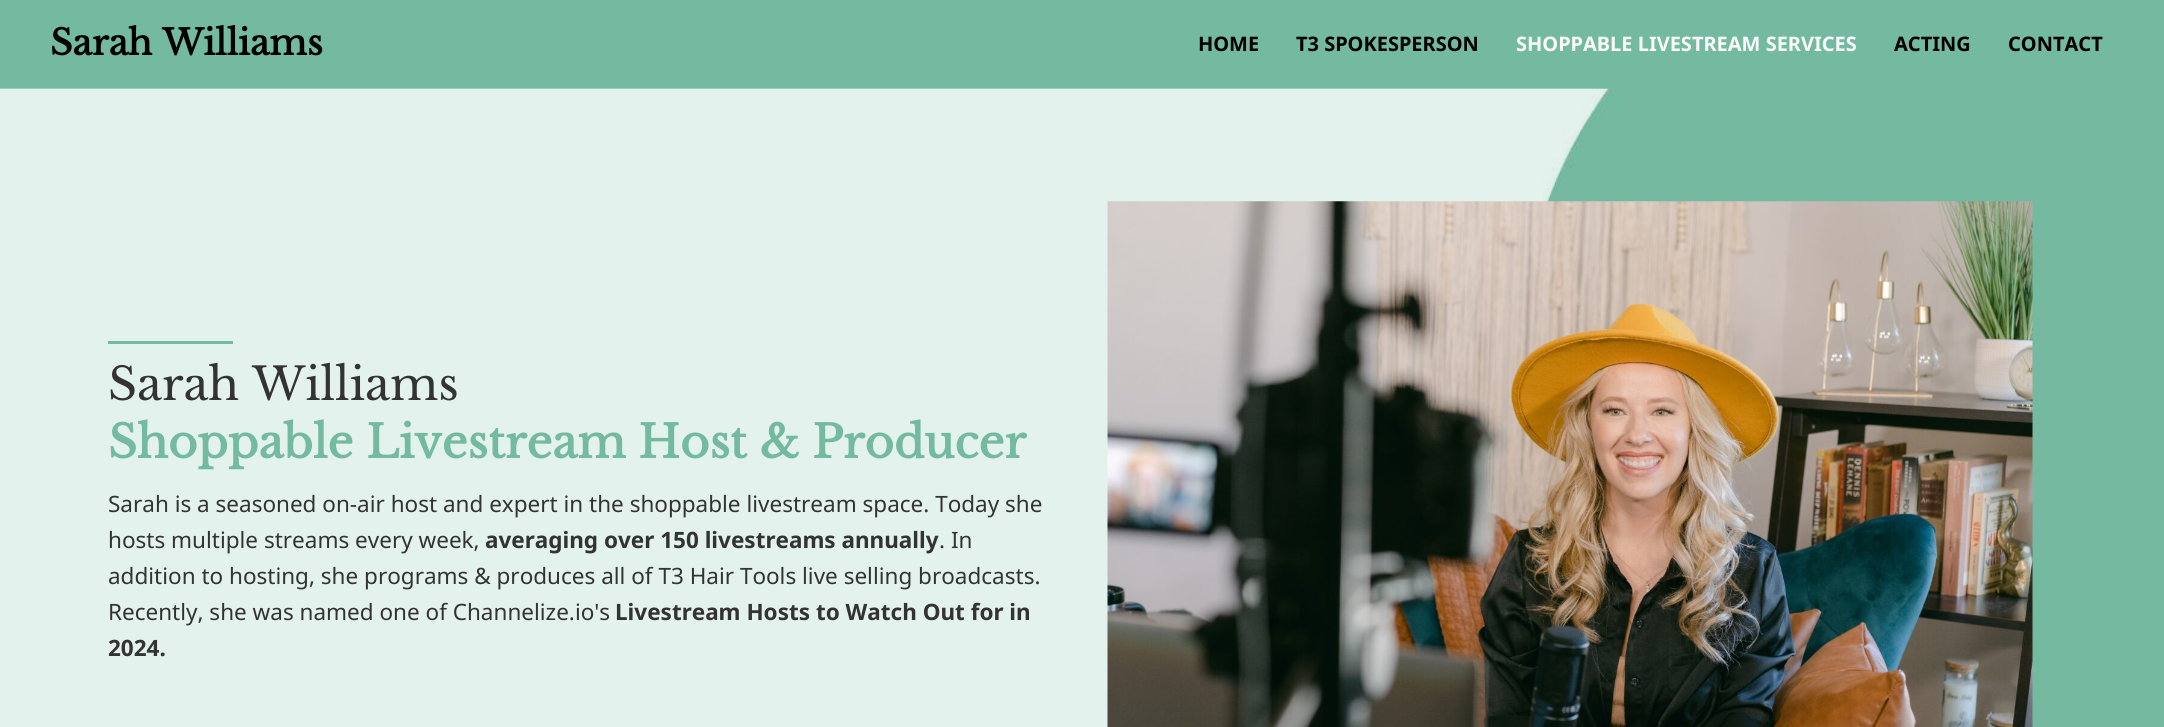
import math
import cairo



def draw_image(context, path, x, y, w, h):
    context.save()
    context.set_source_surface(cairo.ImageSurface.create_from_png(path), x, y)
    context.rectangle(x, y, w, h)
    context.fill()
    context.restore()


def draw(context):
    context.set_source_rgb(115 / 255, 186 / 255, 161 / 255)
    context.paint()
    draw_image(context, "images/1.png", 0, 88, 2164, 639)
    context.set_source_rgb(115 / 255, 186 / 255, 161 / 255)
    context.rectangle(108, 341, 125, 3)
    context.fill()
    draw_image(context, "images/2.png", 1107, 201, 926, 526)
    context.select_font_face("Libre Baskerville", cairo.FontSlant.NORMAL, cairo.FontWeight.BOLD)
    context.set_font_size(35)
    context.set_source_rgb(0, 0, 0)
    context.move_to(50, 55)
    context.show_text("Sarah Williams")
    context.select_font_face("Noto Sans", cairo.FontSlant.NORMAL, cairo.FontWeight.BOLD)
    context.set_font_size(20)
    context.move_to(1198, 51)
    context.show_text("HOME")
    context.move_to(1296, 51)
    context.show_text("T3 SPOKESPERSON")
    context.set_source_rgb(250 / 255, 250 / 255, 250 / 255)
    context.move_to(1516, 51)
    context.show_text("SHOPPABLE LIVESTREAM SERVICES")
    context.set_source_rgb(0, 0, 0)
    context.move_to(1894, 51)
    context.show_text("ACTING")
    context.move_to(2008, 51)
    context.show_text("CONTACT")
    context.select_font_face("Libre Baskerville")
    context.set_font_size(45)
    context.set_source_rgb(51 / 255, 51 / 255, 51 / 255)
    context.move_to(108, 400)
    context.show_text("Sarah Williams")
    context.select_font_face("Libre Baskerville", cairo.FontSlant.NORMAL, cairo.FontWeight.BOLD)
    context.set_source_rgb(115 / 255, 186 / 255, 161 / 255)
    context.move_to(108, 458)
    context.show_text("Shoppable Livestream Host & Producer")
    context.select_font_face("Noto Sans")
    context.set_font_size(22.5)
    context.set_source_rgb(51 / 255, 51 / 255, 51 / 255)
    context.move_to(108, 512)
    context.show_text("Sarah is a seasoned on-air host and expert in the shoppable livestream space. Today she")
    context.move_to(108, 548)
    context.show_text("hosts multiple streams every week,")
    context.select_font_face("Noto Sans", cairo.FontSlant.NORMAL, cairo.FontWeight.BOLD)
    context.move_to(485, 548)
    context.show_text("averaging over 150 livestreams annually")
    context.select_font_face("Noto Sans")
    context.move_to(939, 548)
    context.show_text(". In")
    context.move_to(108, 584)
    context.show_text("addition to hosting, she programs & produces all of T3 Hair Tools live selling broadcasts.")
    context.move_to(108, 620)
    context.show_text("Recently, she was named one of Channelize.io's")
    context.select_font_face("Noto Sans", cairo.FontSlant.NORMAL, cairo.FontWeight.BOLD)
    context.move_to(615, 620)
    context.show_text("Livestream Hosts to Watch Out for in")
    context.move_to(108, 656)
    context.show_text("2024.")


surface = cairo.ImageSurface(cairo.Format.RGB24, 2164, 727)
context = cairo.Context(surface)
options = cairo.FontOptions()
options.set_hint_metrics(cairo.HintMetrics.OFF)
options.set_hint_style(cairo.HintStyle.NONE)
context.set_font_options(options)
context.set_miter_limit(4)
draw(context)
surface.write_to_png("out.png")
